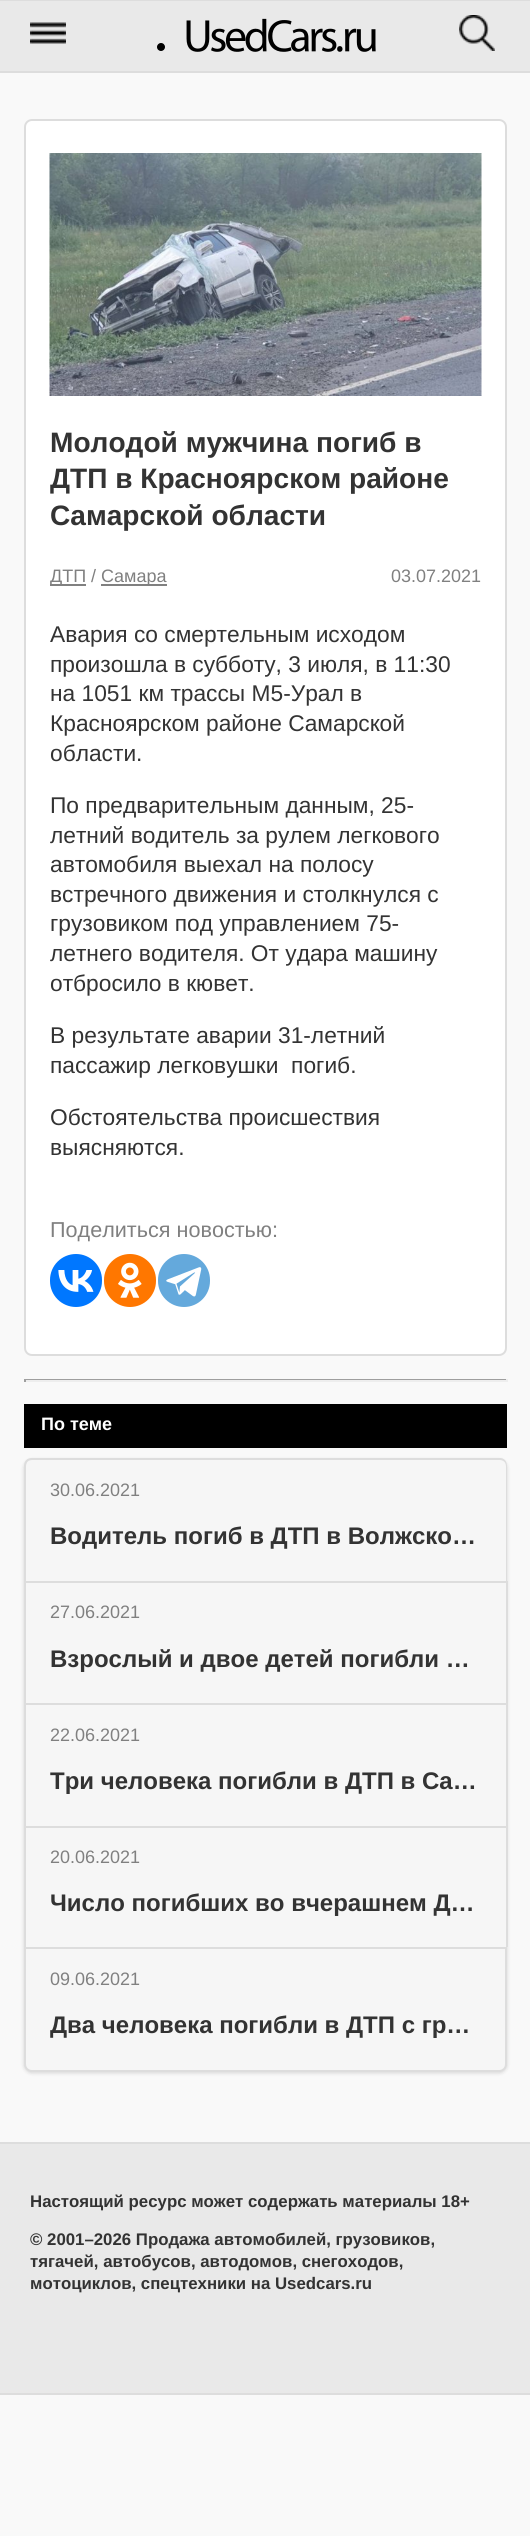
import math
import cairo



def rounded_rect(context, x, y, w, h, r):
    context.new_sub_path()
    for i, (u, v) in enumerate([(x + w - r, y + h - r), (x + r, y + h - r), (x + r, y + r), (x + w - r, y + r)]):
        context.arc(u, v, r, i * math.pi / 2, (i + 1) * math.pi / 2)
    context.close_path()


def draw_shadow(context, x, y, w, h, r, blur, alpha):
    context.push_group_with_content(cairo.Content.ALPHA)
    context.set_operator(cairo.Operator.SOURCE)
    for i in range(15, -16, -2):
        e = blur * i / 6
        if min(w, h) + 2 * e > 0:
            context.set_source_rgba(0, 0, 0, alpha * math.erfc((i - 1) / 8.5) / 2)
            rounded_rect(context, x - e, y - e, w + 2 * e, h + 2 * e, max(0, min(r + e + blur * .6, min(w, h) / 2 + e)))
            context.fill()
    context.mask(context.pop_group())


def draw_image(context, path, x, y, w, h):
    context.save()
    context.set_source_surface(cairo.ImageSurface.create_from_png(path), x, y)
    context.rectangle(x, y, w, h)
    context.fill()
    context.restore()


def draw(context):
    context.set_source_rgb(249 / 255, 249 / 255, 249 / 255)
    context.paint()
    context.set_source_rgb(233 / 255, 233 / 255, 233 / 255)
    context.rectangle(0, 1, 530, 70)
    context.fill()
    context.set_source_rgb(221 / 255, 221 / 255, 221 / 255)
    context.rectangle(0, 0, 530, 1)
    context.fill()
    context.rectangle(0, 71, 530, 2)
    context.fill()
    draw_image(context, "images/1.png", 30, 22, 36, 22)
    draw_image(context, "images/2.png", 157, 18, 219, 34)
    draw_image(context, "images/3.png", 459, 15, 36, 36)
    context.set_source_rgb(1, 1, 1)
    rounded_rect(context, 25, 120, 481, 1235, 7)
    context.fill_preserve()
    context.set_source_rgb(221 / 255, 221 / 255, 221 / 255)
    context.stroke()
    draw_image(context, "images/4.png", 49, 153, 433, 243)
    context.set_source_rgb(128 / 255, 128 / 255, 128 / 255)
    context.rectangle(50, 584, 36, 2)
    context.fill()
    context.rectangle(101, 584, 66, 2)
    context.fill()
    context.set_source_rgb(0, 119 / 255, 1)
    rounded_rect(context, 50, 1254, 52, 53, 26)
    context.fill()
    draw_image(context, "images/5.png", 58, 1270, 36, 22)
    context.set_source_rgb(1, 119 / 255, 0)
    rounded_rect(context, 104, 1254, 52, 53, 26)
    context.fill()
    draw_image(context, "images/6.png", 118, 1262, 24, 36)
    context.set_source_rgb(100 / 255, 169 / 255, 220 / 255)
    rounded_rect(context, 158, 1254, 52, 53, 26)
    context.fill()
    draw_image(context, "images/7.png", 166, 1267, 36, 30)
    context.set_source_rgb(159 / 255, 159 / 255, 159 / 255)
    context.rectangle(24, 1379, 483, 1)
    context.fill()
    context.set_source_rgb(238 / 255, 238 / 255, 238 / 255)
    context.rectangle(506, 1379, 2, 3)
    context.fill()
    context.rectangle(24, 1380, 483, 2)
    context.fill()
    context.set_source_rgb(159 / 255, 159 / 255, 159 / 255)
    context.rectangle(24, 1379, 2, 3)
    context.fill()
    context.set_source_rgb(0, 0, 0)
    context.rectangle(24, 1404, 483, 44)
    context.fill()
    context.set_source_rgb(0, 0, 0)
    draw_shadow(context, 24, 1460, 483, 613, 8, 2, 0.15)
    context.set_source_rgb(246 / 255, 246 / 255, 246 / 255)
    context.new_path()
    context.move_to(32, 1460)
    context.line_to(500, 1460)
    context.curve_to(503.5, 1460, 506, 1462.5, 506, 1466)
    context.line_to(506, 1581)
    context.line_to(26, 1581)
    context.line_to(26, 1466)
    context.curve_to(26, 1462.5, 28.5, 1460, 32, 1460)
    context.close_path()
    context.fill()
    context.set_source_rgb(221 / 255, 221 / 255, 221 / 255)
    context.set_fill_rule(cairo.FillRule.EVEN_ODD)
    context.new_path()
    context.move_to(32, 1458)
    context.line_to(500, 1458)
    context.curve_to(504, 1458, 507, 1461, 507, 1466)
    context.line_to(507, 1581)
    context.line_to(24, 1581)
    context.line_to(24, 1466)
    context.curve_to(24, 1461, 27, 1458, 32, 1458)
    context.close_path()
    context.move_to(32, 1460)
    context.line_to(500, 1460)
    context.curve_to(503, 1460, 506, 1462, 506, 1466)
    context.line_to(506, 1581)
    context.line_to(26, 1581)
    context.line_to(26, 1466)
    context.curve_to(26, 1462, 28, 1460, 32, 1460)
    context.close_path()
    context.fill()
    context.set_source_rgb(246 / 255, 246 / 255, 246 / 255)
    context.rectangle(26, 1583, 480, 120)
    context.fill()
    context.set_source_rgb(221 / 255, 221 / 255, 221 / 255)
    context.rectangle(24, 1581, 483, 2)
    context.fill()
    context.rectangle(506, 1581, 2, 122)
    context.fill()
    context.rectangle(24, 1581, 1, 122)
    context.fill()
    context.set_source_rgb(246 / 255, 246 / 255, 246 / 255)
    context.rectangle(26, 1705, 480, 121)
    context.fill()
    context.set_source_rgb(221 / 255, 221 / 255, 221 / 255)
    context.rectangle(24, 1703, 483, 2)
    context.fill()
    context.rectangle(506, 1703, 2, 123)
    context.fill()
    context.rectangle(24, 1703, 1, 123)
    context.fill()
    context.set_source_rgb(246 / 255, 246 / 255, 246 / 255)
    context.rectangle(26, 1828, 480, 119)
    context.fill()
    context.set_source_rgb(221 / 255, 221 / 255, 221 / 255)
    context.rectangle(24, 1826, 483, 2)
    context.fill()
    context.rectangle(506, 1826, 2, 121)
    context.fill()
    context.rectangle(24, 1826, 1, 121)
    context.fill()
    context.set_source_rgb(246 / 255, 246 / 255, 246 / 255)
    context.new_path()
    context.move_to(25, 1948)
    context.line_to(506, 1948)
    context.line_to(506, 2064)
    context.curve_to(506, 2068, 503, 2071, 499, 2071)
    context.line_to(32, 2071)
    context.curve_to(28, 2071, 25, 2068, 25, 2064)
    context.close_path()
    context.fill_preserve()
    context.set_source_rgb(221 / 255, 221 / 255, 221 / 255)
    context.stroke()
    context.set_source_rgb(233 / 255, 233 / 255, 233 / 255)
    context.rectangle(0, 2144, 530, 249)
    context.fill()
    context.set_source_rgb(221 / 255, 221 / 255, 221 / 255)
    context.rectangle(0, 2142, 530, 2)
    context.fill()
    context.rectangle(0, 2393, 530, 2)
    context.fill()
    context.select_font_face("Liberation Sans", cairo.FontSlant.NORMAL, cairo.FontWeight.BOLD)
    context.set_font_size(28.1)
    context.set_source_rgb(51 / 255, 51 / 255, 51 / 255)
    context.move_to(50, 452)
    context.show_text("Молодой мужчина погиб в")
    context.move_to(50, 488)
    context.show_text("ДТП в Красноярском районе")
    context.move_to(50, 525)
    context.show_text("Самарской области")
    context.select_font_face("Liberation Sans")
    context.set_font_size(18)
    context.set_source_rgb(128 / 255, 128 / 255, 128 / 255)
    context.move_to(50, 582)
    context.show_text("ДТП /")
    context.move_to(101, 582)
    context.show_text("Самара")
    context.move_to(391, 582)
    context.show_text("03.07.2021")
    context.set_font_size(22.75)
    context.set_source_rgb(51 / 255, 51 / 255, 51 / 255)
    context.move_to(50, 642)
    context.show_text("Авария со смертельным исходом")
    context.move_to(50, 672)
    context.show_text("произошла в субботу, 3 июля, в 11:30")
    context.move_to(50, 701)
    context.show_text("на 1051 км трассы М5-Урал в")
    context.move_to(50, 731)
    context.show_text("Красноярском районе Самарской")
    context.move_to(50, 761)
    context.show_text("области.")
    context.move_to(50, 813)
    context.show_text("По предварительным данным, 25-")
    context.move_to(50, 843)
    context.show_text("летний водитель за рулем легкового")
    context.move_to(50, 872)
    context.show_text("автомобиля выехал на полосу")
    context.move_to(50, 902)
    context.show_text("встречного движения и столкнулся с")
    context.move_to(50, 931)
    context.show_text("грузовиком под управлением 75-")
    context.move_to(50, 961)
    context.show_text("летнего водителя. От удара машину")
    context.move_to(50, 991)
    context.show_text("отбросило в кювет.")
    context.move_to(50, 1043)
    context.show_text("В результате аварии 31-летний")
    context.move_to(50, 1073)
    context.show_text("пассажир легковушки  погиб.")
    context.move_to(50, 1125)
    context.show_text("Обстоятельства происшествия")
    context.move_to(50, 1155)
    context.show_text("выясняются.")
    context.set_font_size(21.6)
    context.set_source_rgb(128 / 255, 128 / 255, 128 / 255)
    context.move_to(50, 1237)
    context.show_text("Поделиться новостью:")
    context.select_font_face("Liberation Sans", cairo.FontSlant.NORMAL, cairo.FontWeight.BOLD)
    context.set_font_size(18)
    context.set_source_rgb(1, 1, 1)
    context.move_to(41, 1430)
    context.show_text("По теме")
    context.select_font_face("Liberation Sans")
    context.set_source_rgb(128 / 255, 128 / 255, 128 / 255)
    context.move_to(50, 1496)
    context.show_text("30.06.2021")
    context.select_font_face("Liberation Sans", cairo.FontSlant.NORMAL, cairo.FontWeight.BOLD)
    context.set_font_size(24)
    context.set_source_rgb(51 / 255, 51 / 255, 51 / 255)
    context.move_to(50, 1544)
    context.show_text("Водитель погиб в ДТП в Волжско…")
    context.select_font_face("Liberation Sans")
    context.set_font_size(18)
    context.set_source_rgb(128 / 255, 128 / 255, 128 / 255)
    context.move_to(50, 1618)
    context.show_text("27.06.2021")
    context.select_font_face("Liberation Sans", cairo.FontSlant.NORMAL, cairo.FontWeight.BOLD)
    context.set_font_size(24)
    context.set_source_rgb(51 / 255, 51 / 255, 51 / 255)
    context.move_to(50, 1667)
    context.show_text("Взрослый и двое детей погибли …")
    context.select_font_face("Liberation Sans")
    context.set_font_size(18)
    context.set_source_rgb(128 / 255, 128 / 255, 128 / 255)
    context.move_to(50, 1741)
    context.show_text("22.06.2021")
    context.save()
    context.set_fill_rule(cairo.FillRule.WINDING)
    context.rectangle(50, 1767, 432, 30)
    context.clip()
    context.select_font_face("Liberation Sans", cairo.FontSlant.NORMAL, cairo.FontWeight.BOLD)
    context.set_font_size(24)
    context.set_source_rgb(51 / 255, 51 / 255, 51 / 255)
    context.move_to(50, 1789)
    context.show_text("Три человека погибли в ДТП в Са…")
    context.restore()
    context.move_to(50, 1863)
    context.show_text("20.06.2021")
    context.select_font_face("Liberation Sans", cairo.FontSlant.NORMAL, cairo.FontWeight.BOLD)
    context.set_font_size(24)
    context.set_source_rgb(51 / 255, 51 / 255, 51 / 255)
    context.move_to(50, 1911)
    context.show_text("Число погибших во вчерашнем Д…")
    context.select_font_face("Liberation Sans")
    context.set_font_size(18)
    context.set_source_rgb(128 / 255, 128 / 255, 128 / 255)
    context.move_to(50, 1985)
    context.show_text("09.06.2021")
    context.save()
    context.set_fill_rule(cairo.FillRule.WINDING)
    context.rectangle(50, 2012, 432, 30)
    context.clip()
    context.select_font_face("Liberation Sans", cairo.FontSlant.NORMAL, cairo.FontWeight.BOLD)
    context.set_font_size(24)
    context.set_source_rgb(51 / 255, 51 / 255, 51 / 255)
    context.move_to(50, 2033)
    context.show_text("Два человека погибли в ДТП с гр…")
    context.restore()
    context.select_font_face("Liberation Sans", cairo.FontSlant.NORMAL, cairo.FontWeight.BOLD)
    context.set_font_size(16.8)
    context.set_source_rgb(51 / 255, 51 / 255, 51 / 255)
    context.move_to(30, 2207)
    context.show_text("Настоящий ресурс может содержать материалы 18+")
    context.move_to(30, 2245)
    context.show_text("© 2001–2026 Продажа автомобилей, грузовиков,")
    context.move_to(30, 2267)
    context.show_text("тягачей, автобусов, автодомов, снегоходов,")
    context.move_to(30, 2289)
    context.show_text("мотоциклов, спецтехники на Usedcars.ru")


surface = cairo.ImageSurface(cairo.Format.RGB24, 530, 2536)
context = cairo.Context(surface)
options = cairo.FontOptions()
options.set_hint_metrics(cairo.HintMetrics.OFF)
options.set_hint_style(cairo.HintStyle.NONE)
context.set_font_options(options)
context.set_miter_limit(4)
draw(context)
surface.write_to_png("out.png")
